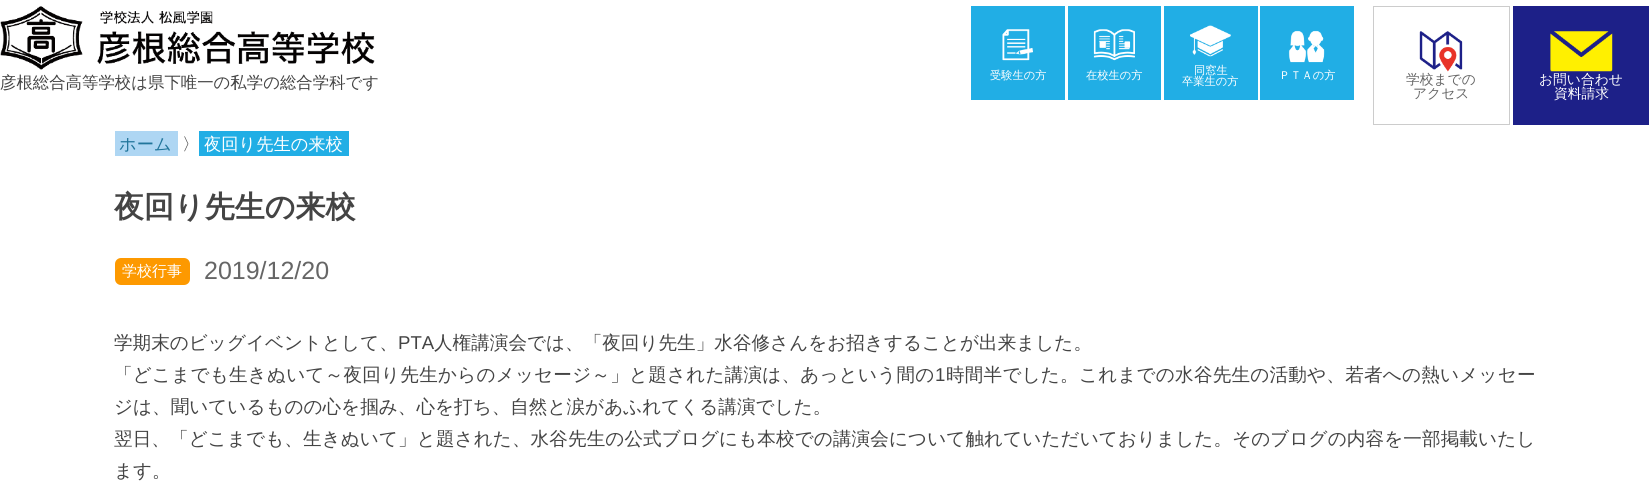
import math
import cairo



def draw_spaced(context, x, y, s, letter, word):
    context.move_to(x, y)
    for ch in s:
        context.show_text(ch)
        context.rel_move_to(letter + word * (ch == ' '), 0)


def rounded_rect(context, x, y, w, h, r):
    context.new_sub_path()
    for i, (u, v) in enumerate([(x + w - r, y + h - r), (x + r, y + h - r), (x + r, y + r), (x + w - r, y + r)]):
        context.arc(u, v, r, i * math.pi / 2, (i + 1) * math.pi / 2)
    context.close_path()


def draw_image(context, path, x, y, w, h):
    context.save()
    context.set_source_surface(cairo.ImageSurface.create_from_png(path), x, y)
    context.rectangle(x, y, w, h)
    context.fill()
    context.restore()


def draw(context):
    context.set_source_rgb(1, 1, 1)
    context.paint()
    draw_image(context, "images/1.png", 0, 6, 375, 64)
    context.set_source_rgb(33 / 255, 174 / 255, 229 / 255)
    context.rectangle(971, 6, 94, 94)
    context.fill()
    draw_image(context, "images/2.png", 1002, 29, 31, 32)
    context.rectangle(1068, 6, 93, 94)
    context.fill()
    draw_image(context, "images/3.png", 1093, 29, 42, 32)
    context.rectangle(1164, 6, 94, 94)
    context.fill()
    draw_image(context, "images/4.png", 1190, 25, 41, 32)
    context.rectangle(1260, 6, 94, 94)
    context.fill()
    draw_image(context, "images/5.png", 1288, 30, 37, 33)
    context.rectangle(1373.5, 6.5, 136, 118)
    context.set_source_rgb(204 / 255, 204 / 255, 204 / 255)
    context.set_line_width(1)
    context.stroke()
    draw_image(context, "images/6.png", 1419, 31, 44, 41)
    context.set_source_rgb(29 / 255, 32 / 255, 136 / 255)
    context.rectangle(1513, 6, 136, 119)
    context.fill()
    draw_image(context, "images/7.png", 1550, 31, 63, 41)
    context.set_source_rgb(174 / 255, 214 / 255, 243 / 255)
    context.rectangle(115, 131, 63, 25)
    context.fill()
    context.set_source_rgb(33 / 255, 174 / 255, 229 / 255)
    context.rectangle(199, 131, 150, 25)
    context.fill()
    context.set_source_rgb(253 / 255, 153 / 255, 0)
    rounded_rect(context, 115, 258, 75, 27, 6)
    context.fill()
    context.select_font_face("WenQuanYi Zen Hei Medium")
    context.set_font_size(16.4)
    context.set_source_rgb(68 / 255, 68 / 255, 68 / 255)
    context.move_to(0, 88)
    context.show_text("彦根総合高等学校は県下唯一の私学の総合学科です")
    context.set_font_size(11.25)
    context.set_source_rgb(1, 1, 1)
    context.move_to(990, 79)
    context.show_text("受験生の方")
    context.move_to(1086, 79)
    context.show_text("在校生の方")
    context.move_to(1194, 74)
    context.show_text("同窓生")
    context.move_to(1182, 85)
    context.show_text("卒業生の方")
    context.move_to(1279, 79)
    context.show_text("ＰＴＡの方")
    context.set_font_size(13.75)
    context.set_source_rgb(102 / 255, 102 / 255, 102 / 255)
    context.move_to(1406, 84)
    context.show_text("学校までの")
    context.move_to(1413, 98)
    context.show_text("アクセス")
    context.set_source_rgb(1, 1, 1)
    context.move_to(1539, 84)
    context.show_text("お問い合わせ")
    context.move_to(1554, 98)
    context.show_text("資料請求")
    context.set_font_size(17.25)
    context.set_source_rgb(33 / 255, 117 / 255, 155 / 255)
    context.move_to(119, 150)
    context.show_text("ホーム")
    context.set_source_rgb(68 / 255, 68 / 255, 68 / 255)
    context.move_to(182, 150)
    context.show_text("〉")
    context.set_source_rgb(1, 1, 1)
    context.move_to(204, 150)
    context.show_text("夜回り先生の来校")
    context.select_font_face("WenQuanYi Zen Hei", cairo.FontSlant.NORMAL, cairo.FontWeight.BOLD)
    context.set_font_size(30)
    context.set_source_rgb(68 / 255, 68 / 255, 68 / 255)
    context.move_to(114, 217)
    context.show_text("夜回り先生の来校")
    context.select_font_face("WenQuanYi Zen Hei Medium")
    context.set_font_size(15)
    context.set_source_rgb(1, 1, 1)
    context.move_to(122, 276)
    context.show_text("学校行事")
    context.select_font_face("Liberation Sans")
    context.set_font_size(25)
    context.set_source_rgb(102 / 255, 102 / 255, 102 / 255)
    context.move_to(204, 279)
    context.show_text("2019/12/20")
    context.select_font_face("WenQuanYi Zen Hei Medium")
    context.set_font_size(18.6)
    context.set_source_rgb(68 / 255, 68 / 255, 68 / 255)
    context.move_to(114, 349)
    context.show_text("学期末のビッグイベントとして、")
    context.select_font_face("Liberation Sans")
    context.move_to(398, 349)
    context.show_text("PTA")
    context.select_font_face("WenQuanYi Zen Hei Medium")
    context.move_to(434, 349)
    context.show_text("人権講演会では、「夜回り先生」水谷修さんをお招きすることが出来ました。")
    draw_spaced(context, 114, 381, "「どこまでも生きぬいて～夜回り先生からのメッセージ～」と題された講演は、あっという間の", 0.2, 0)
    context.select_font_face("Liberation Sans")
    draw_spaced(context, 935, 381, "1", 0.2, 0)
    context.select_font_face("WenQuanYi Zen Hei Medium")
    draw_spaced(context, 946, 381, "時間半でした。これまでの水谷先生の活動や、若者への熱いメッセー", 0.2, 0)
    context.move_to(114, 413)
    context.show_text("ジは、聞いているものの心を掴み、心を打ち、自然と涙があふれてくる講演でした。")
    draw_spaced(context, 114, 445, "翌日、「どこまでも、生きぬいて」と題された、水谷先生の公式ブログにも本校での講演会について触れていただいておりました。そのブログの内容を一部掲載いたし", 0.08, 0)
    context.move_to(114, 477)
    context.show_text("ます。")


surface = cairo.ImageSurface(cairo.Format.RGB24, 1649, 489)
context = cairo.Context(surface)
options = cairo.FontOptions()
options.set_hint_metrics(cairo.HintMetrics.OFF)
options.set_hint_style(cairo.HintStyle.NONE)
context.set_font_options(options)
context.set_miter_limit(4)
draw(context)
surface.write_to_png("out.png")
